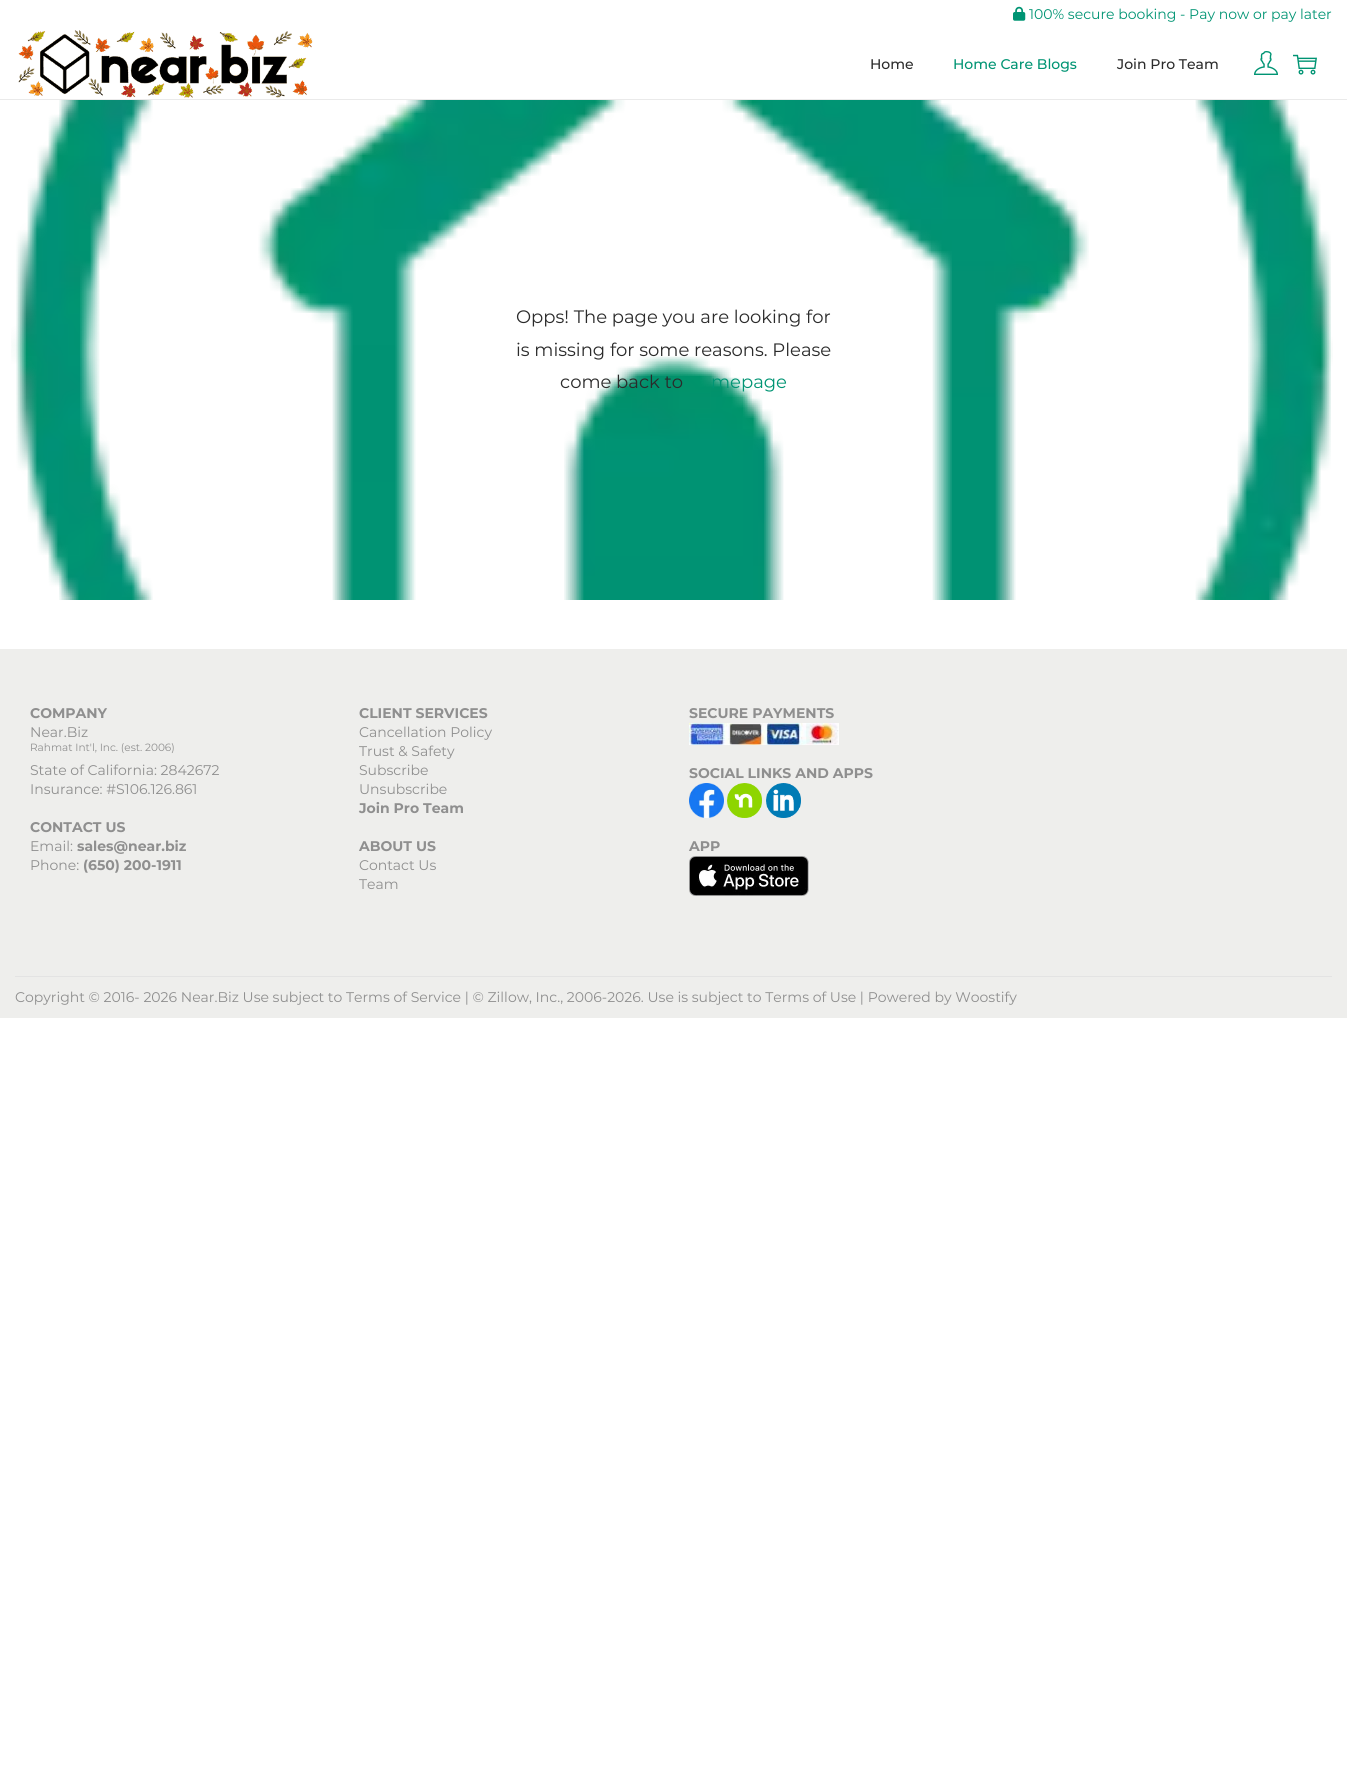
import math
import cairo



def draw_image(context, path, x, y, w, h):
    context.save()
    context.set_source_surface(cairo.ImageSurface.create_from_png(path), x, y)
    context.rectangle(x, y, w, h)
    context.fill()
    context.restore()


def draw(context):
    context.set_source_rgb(1, 1, 1)
    context.paint()
    draw_image(context, "images/1.png", 1013, 6, 13, 15)
    context.set_source_rgb(234 / 255, 234 / 255, 234 / 255)
    context.rectangle(0, 99, 1347, 1)
    context.fill()
    draw_image(context, "images/2.png", 18, 30, 295, 68)
    draw_image(context, "images/3.png", 1254, 51, 24, 24)
    draw_image(context, "images/4.png", 1293, 54, 24, 21)
    draw_image(context, "images/5.png", 11, 100, 1322, 500)
    context.set_source_rgb(238 / 255, 238 / 255, 236 / 255)
    context.rectangle(0, 649, 1347, 369)
    context.fill()
    draw_image(context, "images/6.png", 689, 723, 150, 22)
    draw_image(context, "images/7.png", 689, 783, 35, 35)
    draw_image(context, "images/8.png", 727, 783, 35, 35)
    draw_image(context, "images/9.png", 766, 783, 35, 35)
    draw_image(context, "images/10.png", 689, 856, 120, 40)
    context.set_source_rgb(227 / 255, 227 / 255, 227 / 255)
    context.rectangle(15, 976, 1317, 1)
    context.fill()
    context.select_font_face("Montserrat")
    context.set_font_size(14)
    context.set_source_rgb(0, 148 / 255, 115 / 255)
    context.move_to(1029, 19)
    context.show_text("100% secure booking - Pay now or pay later")
    context.select_font_face("Montserrat Medium")
    context.set_source_rgb(43 / 255, 43 / 255, 43 / 255)
    context.move_to(870, 69)
    context.show_text("Home")
    context.set_source_rgb(0, 148 / 255, 115 / 255)
    context.move_to(953, 69)
    context.show_text("Home Care Blogs")
    context.set_source_rgb(43 / 255, 43 / 255, 43 / 255)
    context.move_to(1117, 69)
    context.show_text("Join Pro Team")
    context.select_font_face("Montserrat")
    context.set_font_size(18)
    context.move_to(516, 323)
    context.show_text("Opps! The page you are looking for")
    context.move_to(516, 356)
    context.show_text("is missing for some reasons. Please")
    context.move_to(560, 388)
    context.show_text("come back to")
    context.set_source_rgb(0, 148 / 255, 115 / 255)
    context.move_to(711, 388)
    context.show_text("mepage")
    context.select_font_face("Montserrat", cairo.FontSlant.NORMAL, cairo.FontWeight.BOLD)
    context.set_font_size(14)
    context.set_source_rgb(143 / 255, 143 / 255, 143 / 255)
    context.move_to(30, 718)
    context.show_text("COMPANY")
    context.select_font_face("Montserrat")
    context.move_to(30, 737)
    context.show_text("Near.Biz")
    context.set_font_size(10.5)
    context.move_to(30, 751)
    context.show_text("Rahmat Int'l, Inc. (est. 2006)")
    context.set_font_size(14)
    context.move_to(30, 775)
    context.show_text("State of California: 2842672")
    context.move_to(30, 794)
    context.show_text("Insurance: #S106.126.861")
    context.select_font_face("Montserrat", cairo.FontSlant.NORMAL, cairo.FontWeight.BOLD)
    context.move_to(30, 832)
    context.show_text("CONTACT US")
    context.select_font_face("Montserrat")
    context.move_to(30, 851)
    context.show_text("Email:")
    context.select_font_face("Montserrat", cairo.FontSlant.NORMAL, cairo.FontWeight.BOLD)
    context.move_to(77, 851)
    context.show_text("sales@near.biz")
    context.select_font_face("Montserrat")
    context.move_to(30, 870)
    context.show_text("Phone:")
    context.select_font_face("Montserrat", cairo.FontSlant.NORMAL, cairo.FontWeight.BOLD)
    context.move_to(83, 870)
    context.show_text("(650) 200-1911")
    context.move_to(359, 718)
    context.show_text("CLIENT SERVICES")
    context.select_font_face("Montserrat")
    context.move_to(359, 737)
    context.show_text("Cancellation Policy")
    context.move_to(359, 756)
    context.show_text("Trust & Safety")
    context.move_to(359, 775)
    context.show_text("Subscribe")
    context.move_to(359, 794)
    context.show_text("Unsubscribe")
    context.select_font_face("Montserrat", cairo.FontSlant.NORMAL, cairo.FontWeight.BOLD)
    context.move_to(359, 813)
    context.show_text("Join Pro Team")
    context.move_to(359, 851)
    context.show_text("ABOUT US")
    context.select_font_face("Montserrat")
    context.move_to(359, 870)
    context.show_text("Contact Us")
    context.move_to(359, 889)
    context.show_text("Team")
    context.select_font_face("Montserrat", cairo.FontSlant.NORMAL, cairo.FontWeight.BOLD)
    context.move_to(689, 718)
    context.show_text("SECURE PAYMENTS")
    context.move_to(689, 778)
    context.show_text("SOCIAL LINKS AND APPS")
    context.move_to(689, 851)
    context.show_text("APP")
    context.select_font_face("Montserrat")
    context.move_to(15, 1002)
    context.show_text("Copyright © 2016- 2026 Near.Biz Use subject to Terms of Service | © Zillow, Inc., 2006-2026. Use is subject to Terms of Use | Powered by Woostify")


surface = cairo.ImageSurface(cairo.Format.RGB24, 1347, 1787)
context = cairo.Context(surface)
options = cairo.FontOptions()
options.set_hint_metrics(cairo.HintMetrics.OFF)
options.set_hint_style(cairo.HintStyle.NONE)
context.set_font_options(options)
context.set_miter_limit(4)
draw(context)
surface.write_to_png("out.png")
